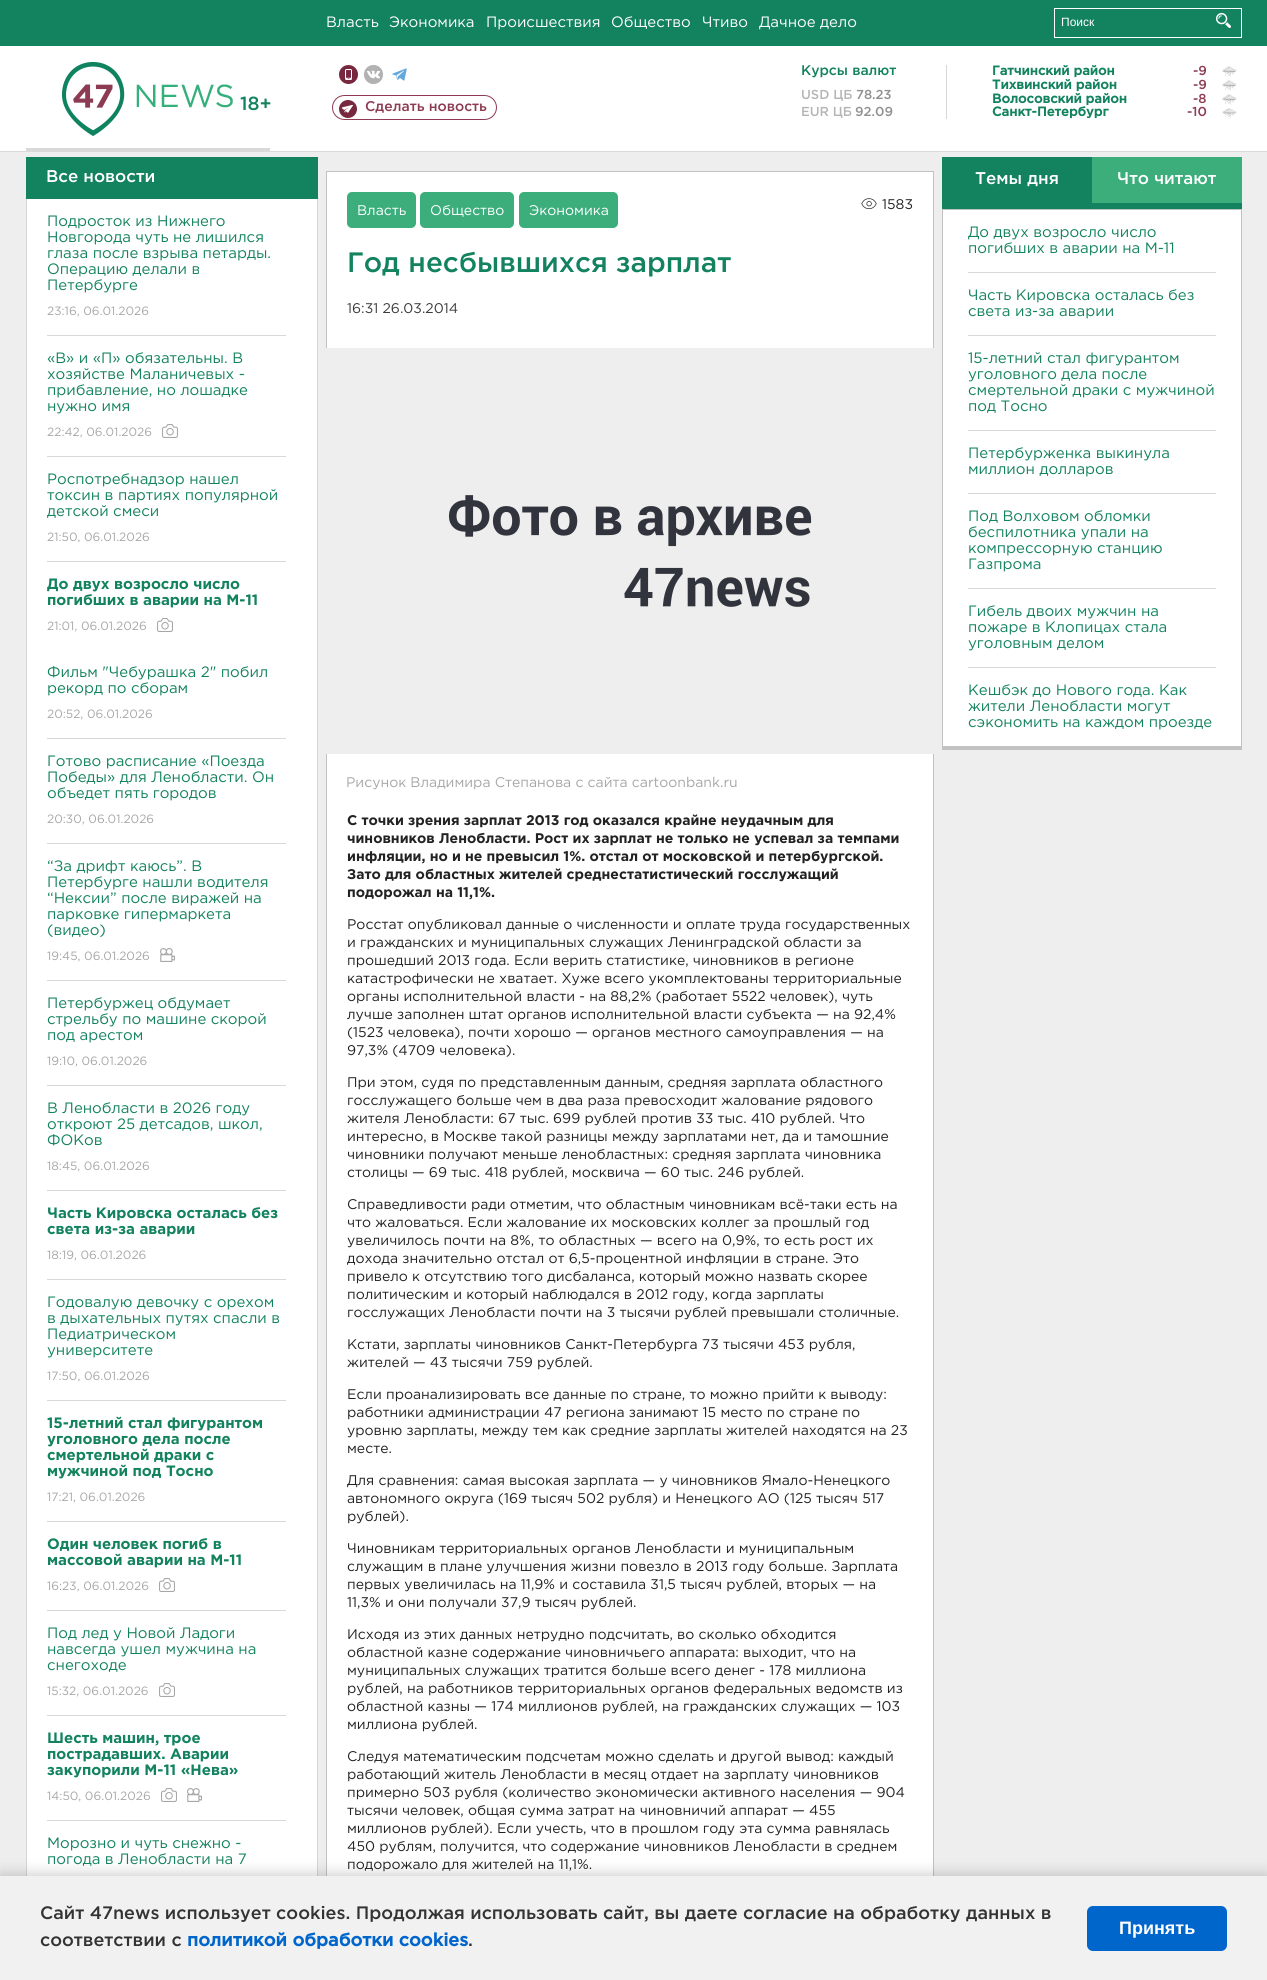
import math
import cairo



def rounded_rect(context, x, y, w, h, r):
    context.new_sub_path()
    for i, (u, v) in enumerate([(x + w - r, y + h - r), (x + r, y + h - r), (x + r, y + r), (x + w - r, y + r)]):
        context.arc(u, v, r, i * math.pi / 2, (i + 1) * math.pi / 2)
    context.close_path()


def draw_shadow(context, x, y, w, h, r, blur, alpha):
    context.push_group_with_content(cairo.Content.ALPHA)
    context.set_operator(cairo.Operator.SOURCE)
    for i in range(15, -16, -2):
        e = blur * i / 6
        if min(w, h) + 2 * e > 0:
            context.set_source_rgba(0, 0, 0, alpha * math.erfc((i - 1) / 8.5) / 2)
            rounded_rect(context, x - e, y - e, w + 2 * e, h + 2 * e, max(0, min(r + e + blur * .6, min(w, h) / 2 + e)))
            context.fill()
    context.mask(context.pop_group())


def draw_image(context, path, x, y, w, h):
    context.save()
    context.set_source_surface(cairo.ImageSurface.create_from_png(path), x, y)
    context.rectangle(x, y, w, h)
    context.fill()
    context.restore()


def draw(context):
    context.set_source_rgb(238 / 255, 238 / 255, 238 / 255)
    context.paint()
    context.set_source_rgb(19 / 255, 130 / 255, 95 / 255)
    context.rectangle(0, 0, 1267, 46)
    context.fill()
    context.rectangle(1054.5, 8.5, 187, 29)
    context.set_source_rgb(1, 1, 1)
    context.set_line_width(1)
    context.stroke()
    draw_image(context, "images/1.png", 1216, 13, 15, 15)
    context.rectangle(0, 46, 1267, 105)
    context.fill()
    context.set_source_rgb(218 / 255, 217 / 255, 217 / 255)
    context.rectangle(0, 151, 1267, 1)
    context.fill()
    context.rectangle(26, 148, 244, 3)
    context.fill()
    draw_image(context, "images/2.png", 62, 62, 171, 74)
    context.set_source_rgb(214 / 255, 214 / 255, 214 / 255)
    context.rectangle(946, 65, 1, 54)
    context.fill()
    draw_image(context, "images/3.png", 1222, 66, 15, 11)
    draw_image(context, "images/3.png", 1222, 80, 15, 11)
    draw_image(context, "images/3.png", 1222, 94, 15, 11)
    draw_image(context, "images/4.png", 1222, 108, 15, 10)
    draw_image(context, "images/5.png", 339, 65, 19, 19)
    draw_image(context, "images/6.png", 364, 65, 19, 19)
    draw_image(context, "images/7.png", 392, 68, 15, 13)
    draw_image(context, "images/8.png", 339, 100, 18, 18)
    rounded_rect(context, 332.5, 95.5, 164, 24, 12)
    context.set_source_rgb(140 / 255, 59 / 255, 82 / 255)
    context.stroke()
    context.set_source_rgb(19 / 255, 130 / 255, 95 / 255)
    context.rectangle(26, 157, 292, 42)
    context.fill()
    context.set_source_rgb(1, 1, 1)
    context.rectangle(27, 199, 290, 1677)
    context.fill()
    context.set_source_rgb(214 / 255, 214 / 255, 214 / 255)
    context.rectangle(317, 199, 1, 1677)
    context.fill()
    context.rectangle(26, 199, 1, 1677)
    context.fill()
    context.set_source_rgb(216 / 255, 216 / 255, 216 / 255)
    context.rectangle(47, 335, 239, 1)
    context.fill()
    context.rectangle(47, 456, 239, 1)
    context.fill()
    draw_image(context, "images/9.png", 162, 424, 16, 14)
    context.rectangle(47, 561, 239, 1)
    context.fill()
    draw_image(context, "images/9.png", 157, 618, 16, 14)
    context.rectangle(47, 738, 239, 1)
    context.fill()
    context.rectangle(47, 843, 239, 1)
    context.fill()
    context.rectangle(47, 980, 239, 1)
    context.fill()
    draw_image(context, "images/10.png", 160, 948, 15, 14)
    context.rectangle(47, 1085, 239, 1)
    context.fill()
    context.rectangle(47, 1190, 239, 1)
    context.fill()
    context.rectangle(47, 1279, 239, 1)
    context.fill()
    context.rectangle(47, 1400, 239, 1)
    context.fill()
    context.rectangle(47, 1521, 239, 1)
    context.fill()
    context.rectangle(47, 1610, 239, 1)
    context.fill()
    draw_image(context, "images/9.png", 159, 1578, 16, 14)
    context.rectangle(47, 1715, 239, 1)
    context.fill()
    draw_image(context, "images/9.png", 159, 1683, 16, 14)
    context.rectangle(47, 1820, 239, 1)
    context.fill()
    draw_image(context, "images/9.png", 161, 1788, 16, 14)
    draw_image(context, "images/10.png", 187, 1788, 15, 14)
    context.set_source_rgb(1, 1, 1)
    context.rectangle(327, 172, 606, 1704)
    context.fill()
    context.rectangle(326.5, 171.5, 607, 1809)
    context.set_source_rgb(194 / 255, 194 / 255, 194 / 255)
    context.stroke()
    context.set_source_rgb(59 / 255, 174 / 255, 124 / 255)
    rounded_rect(context, 347, 192, 69, 36, 5)
    context.fill()
    rounded_rect(context, 420, 192, 94, 36, 5)
    context.fill()
    rounded_rect(context, 519, 192, 99, 36, 5)
    context.fill()
    draw_image(context, "images/11.png", 861, 198, 16, 11)
    draw_image(context, "images/12.png", 326, 348, 608, 406)
    context.set_source_rgb(19 / 255, 130 / 255, 95 / 255)
    context.rectangle(942, 157, 300, 52)
    context.fill()
    context.set_source_rgb(59 / 255, 174 / 255, 124 / 255)
    context.rectangle(1092, 157, 150, 46)
    context.fill()
    context.set_source_rgb(1, 1, 1)
    context.rectangle(943, 210, 298, 536)
    context.fill()
    context.set_source_rgb(194 / 255, 194 / 255, 194 / 255)
    context.rectangle(942, 209, 300, 1)
    context.fill()
    context.rectangle(1241, 209, 1, 541)
    context.fill()
    context.rectangle(942, 746, 300, 4)
    context.fill()
    context.rectangle(942, 209, 1, 541)
    context.fill()
    context.set_source_rgb(216 / 255, 216 / 255, 216 / 255)
    context.rectangle(968, 272, 248, 1)
    context.fill()
    context.rectangle(968, 335, 248, 1)
    context.fill()
    context.rectangle(968, 430, 248, 1)
    context.fill()
    context.rectangle(968, 493, 248, 1)
    context.fill()
    context.rectangle(968, 588, 248, 1)
    context.fill()
    context.rectangle(968, 667, 248, 1)
    context.fill()
    context.set_source_rgb(0, 0, 0)
    draw_shadow(context, 0, 1874, 1267, 104, 0, 7.5, 0.2)
    context.set_source_rgb(241 / 255, 241 / 255, 241 / 255)
    context.rectangle(0, 1876, 1267, 104)
    context.fill()
    context.set_source_rgb(0, 102 / 255, 204 / 255)
    rounded_rect(context, 1087, 1906, 140, 45, 6)
    context.fill()
    context.select_font_face("Gotham")
    context.set_font_size(15)
    context.set_source_rgb(1, 1, 1)
    context.move_to(326, 27)
    context.show_text("Власть")
    context.move_to(389, 27)
    context.show_text("Экономика")
    context.move_to(486, 27)
    context.show_text("Происшествия")
    context.move_to(611, 27)
    context.show_text("Общество")
    context.move_to(702, 27)
    context.show_text("Чтиво")
    context.move_to(759, 27)
    context.show_text("Дачное дело")
    context.select_font_face("Liberation Sans")
    context.set_font_size(12)
    context.move_to(1061, 26)
    context.show_text("Поиск")
    context.select_font_face("Gotham Medium")
    context.set_font_size(14)
    context.set_source_rgb(19 / 255, 130 / 255, 95 / 255)
    context.move_to(801, 75)
    context.show_text("Курсы валют")
    context.set_font_size(13)
    context.set_source_rgb(181 / 255, 181 / 255, 181 / 255)
    context.move_to(801, 99)
    context.show_text("USD ЦБ")
    context.set_source_rgb(145 / 255, 145 / 255, 145 / 255)
    context.move_to(856, 99)
    context.show_text("78.23")
    context.set_source_rgb(181 / 255, 181 / 255, 181 / 255)
    context.move_to(801, 116)
    context.show_text("EUR ЦБ")
    context.set_source_rgb(145 / 255, 145 / 255, 145 / 255)
    context.move_to(855, 116)
    context.show_text("92.09")
    context.select_font_face("Gotham", cairo.FontSlant.NORMAL, cairo.FontWeight.BOLD)
    context.set_source_rgb(19 / 255, 130 / 255, 95 / 255)
    context.move_to(992, 75)
    context.show_text("Гатчинский район")
    context.select_font_face("Gotham Medium")
    context.set_source_rgb(140 / 255, 59 / 255, 82 / 255)
    context.move_to(1193, 75)
    context.show_text("-9")
    context.select_font_face("Gotham", cairo.FontSlant.NORMAL, cairo.FontWeight.BOLD)
    context.set_source_rgb(19 / 255, 130 / 255, 95 / 255)
    context.move_to(992, 89)
    context.show_text("Тихвинский район")
    context.select_font_face("Gotham Medium")
    context.set_source_rgb(140 / 255, 59 / 255, 82 / 255)
    context.move_to(1193, 89)
    context.show_text("-9")
    context.select_font_face("Gotham", cairo.FontSlant.NORMAL, cairo.FontWeight.BOLD)
    context.set_source_rgb(19 / 255, 130 / 255, 95 / 255)
    context.move_to(992, 103)
    context.show_text("Волосовский район")
    context.select_font_face("Gotham Medium")
    context.set_source_rgb(140 / 255, 59 / 255, 82 / 255)
    context.move_to(1193, 103)
    context.show_text("-8")
    context.select_font_face("Gotham", cairo.FontSlant.NORMAL, cairo.FontWeight.BOLD)
    context.set_source_rgb(19 / 255, 130 / 255, 95 / 255)
    context.move_to(992, 116)
    context.show_text("Санкт-Петербург")
    context.select_font_face("Gotham Medium")
    context.set_source_rgb(140 / 255, 59 / 255, 82 / 255)
    context.move_to(1187, 116)
    context.show_text("-10")
    context.set_font_size(19)
    context.set_source_rgb(19 / 255, 130 / 255, 95 / 255)
    context.move_to(240, 110)
    context.show_text("18+")
    context.set_font_size(14)
    context.set_source_rgb(140 / 255, 59 / 255, 82 / 255)
    context.move_to(365, 111)
    context.show_text("Сделать новость")
    context.set_font_size(17)
    context.set_source_rgb(1, 1, 1)
    context.move_to(46, 182)
    context.show_text("Все новости")
    context.select_font_face("Gotham")
    context.set_font_size(15)
    context.set_source_rgb(19 / 255, 130 / 255, 95 / 255)
    context.move_to(47, 226)
    context.show_text("Подросток из Нижнего")
    context.move_to(47, 242)
    context.show_text("Новгорода чуть не лишился")
    context.move_to(47, 258)
    context.show_text("глаза после взрыва петарды.")
    context.move_to(47, 274)
    context.show_text("Операцию делали в")
    context.move_to(47, 290)
    context.show_text("Петербурге")
    context.set_font_size(12)
    context.set_source_rgb(167 / 255, 167 / 255, 167 / 255)
    context.move_to(47, 315)
    context.show_text("23:16, 06.01.2026")
    context.set_font_size(15)
    context.set_source_rgb(19 / 255, 130 / 255, 95 / 255)
    context.move_to(47, 363)
    context.show_text("«В» и «П» обязательны. B")
    context.move_to(47, 379)
    context.show_text("хозяйстве Маланичевых -")
    context.move_to(47, 395)
    context.show_text("прибавление, но лошадке")
    context.move_to(47, 411)
    context.show_text("нужно имя")
    context.set_font_size(12)
    context.set_source_rgb(167 / 255, 167 / 255, 167 / 255)
    context.move_to(47, 436)
    context.show_text("22:42, 06.01.2026")
    context.set_font_size(15)
    context.set_source_rgb(19 / 255, 130 / 255, 95 / 255)
    context.move_to(47, 484)
    context.show_text("Роспотребнадзор нашел")
    context.move_to(47, 500)
    context.show_text("токсин в партиях популярной")
    context.move_to(47, 516)
    context.show_text("детской смеси")
    context.set_font_size(12)
    context.set_source_rgb(167 / 255, 167 / 255, 167 / 255)
    context.move_to(47, 541)
    context.show_text("21:50, 06.01.2026")
    context.select_font_face("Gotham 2", cairo.FontSlant.NORMAL, cairo.FontWeight.BOLD)
    context.set_font_size(15)
    context.set_source_rgb(19 / 255, 130 / 255, 95 / 255)
    context.move_to(47, 589)
    context.show_text("До двух возросло число")
    context.move_to(47, 605)
    context.show_text("погибших в аварии на М-11")
    context.select_font_face("Gotham")
    context.set_font_size(12)
    context.set_source_rgb(167 / 255, 167 / 255, 167 / 255)
    context.move_to(47, 630)
    context.show_text("21:01, 06.01.2026")
    context.set_font_size(15)
    context.set_source_rgb(19 / 255, 130 / 255, 95 / 255)
    context.move_to(47, 677)
    context.show_text("Фильм \"Чебурашка 2\" побил")
    context.move_to(47, 693)
    context.show_text("рекорд по сборам")
    context.set_font_size(12)
    context.set_source_rgb(167 / 255, 167 / 255, 167 / 255)
    context.move_to(47, 718)
    context.show_text("20:52, 06.01.2026")
    context.set_font_size(15)
    context.set_source_rgb(19 / 255, 130 / 255, 95 / 255)
    context.move_to(47, 766)
    context.show_text("Готово расписание «Поезда")
    context.move_to(47, 782)
    context.show_text("Победы» для Ленобласти. Он")
    context.move_to(47, 798)
    context.show_text("объедет пять городов")
    context.set_font_size(12)
    context.set_source_rgb(167 / 255, 167 / 255, 167 / 255)
    context.move_to(47, 823)
    context.show_text("20:30, 06.01.2026")
    context.set_font_size(15)
    context.set_source_rgb(19 / 255, 130 / 255, 95 / 255)
    context.move_to(47, 871)
    context.show_text("“За дрифт каюсь”. В")
    context.move_to(47, 887)
    context.show_text("Петербурге нашли водителя")
    context.move_to(47, 903)
    context.show_text("“Нексии” после виражей на")
    context.move_to(47, 919)
    context.show_text("парковке гипермаркета")
    context.move_to(47, 935)
    context.show_text("(видео)")
    context.set_font_size(12)
    context.set_source_rgb(167 / 255, 167 / 255, 167 / 255)
    context.move_to(47, 960)
    context.show_text("19:45, 06.01.2026")
    context.set_font_size(15)
    context.set_source_rgb(19 / 255, 130 / 255, 95 / 255)
    context.move_to(47, 1008)
    context.show_text("Петербуржец обдумает")
    context.move_to(47, 1024)
    context.show_text("стрельбу по машине скорой")
    context.move_to(47, 1040)
    context.show_text("под арестом")
    context.set_font_size(12)
    context.set_source_rgb(167 / 255, 167 / 255, 167 / 255)
    context.move_to(47, 1065)
    context.show_text("19:10, 06.01.2026")
    context.set_font_size(15)
    context.set_source_rgb(19 / 255, 130 / 255, 95 / 255)
    context.move_to(47, 1113)
    context.show_text("В Ленобласти в 2026 году")
    context.move_to(47, 1129)
    context.show_text("откроют 25 детсадов, школ,")
    context.move_to(47, 1145)
    context.show_text("ФОКов")
    context.set_font_size(12)
    context.set_source_rgb(167 / 255, 167 / 255, 167 / 255)
    context.move_to(47, 1170)
    context.show_text("18:45, 06.01.2026")
    context.select_font_face("Gotham 2", cairo.FontSlant.NORMAL, cairo.FontWeight.BOLD)
    context.set_font_size(15)
    context.set_source_rgb(19 / 255, 130 / 255, 95 / 255)
    context.move_to(47, 1218)
    context.show_text("Часть Кировска осталась без")
    context.move_to(47, 1234)
    context.show_text("света из-за аварии")
    context.select_font_face("Gotham")
    context.set_font_size(12)
    context.set_source_rgb(167 / 255, 167 / 255, 167 / 255)
    context.move_to(47, 1259)
    context.show_text("18:19, 06.01.2026")
    context.set_font_size(15)
    context.set_source_rgb(19 / 255, 130 / 255, 95 / 255)
    context.move_to(47, 1307)
    context.show_text("Годовалую девочку с орехом")
    context.move_to(47, 1323)
    context.show_text("в дыхательных путях спасли в")
    context.move_to(47, 1339)
    context.show_text("Педиатрическом")
    context.move_to(47, 1355)
    context.show_text("университете")
    context.set_font_size(12)
    context.set_source_rgb(167 / 255, 167 / 255, 167 / 255)
    context.move_to(47, 1380)
    context.show_text("17:50, 06.01.2026")
    context.select_font_face("Gotham 2", cairo.FontSlant.NORMAL, cairo.FontWeight.BOLD)
    context.set_font_size(15)
    context.set_source_rgb(19 / 255, 130 / 255, 95 / 255)
    context.move_to(47, 1428)
    context.show_text("15-летний стал фигурантом")
    context.move_to(47, 1444)
    context.show_text("уголовного дела после")
    context.move_to(47, 1460)
    context.show_text("смертельной драки с")
    context.move_to(47, 1476)
    context.show_text("мужчиной под Тосно")
    context.select_font_face("Gotham")
    context.set_font_size(12)
    context.set_source_rgb(167 / 255, 167 / 255, 167 / 255)
    context.move_to(47, 1501)
    context.show_text("17:21, 06.01.2026")
    context.select_font_face("Gotham 2", cairo.FontSlant.NORMAL, cairo.FontWeight.BOLD)
    context.set_font_size(15)
    context.set_source_rgb(19 / 255, 130 / 255, 95 / 255)
    context.move_to(47, 1549)
    context.show_text("Один человек погиб в")
    context.move_to(47, 1565)
    context.show_text("массовой аварии на М-11")
    context.select_font_face("Gotham")
    context.set_font_size(12)
    context.set_source_rgb(167 / 255, 167 / 255, 167 / 255)
    context.move_to(47, 1590)
    context.show_text("16:23, 06.01.2026")
    context.set_font_size(15)
    context.set_source_rgb(19 / 255, 130 / 255, 95 / 255)
    context.move_to(47, 1638)
    context.show_text("Под лед у Новой Ладоги")
    context.move_to(47, 1654)
    context.show_text("навсегда ушел мужчина на")
    context.move_to(47, 1670)
    context.show_text("снегоходе")
    context.set_font_size(12)
    context.set_source_rgb(167 / 255, 167 / 255, 167 / 255)
    context.move_to(47, 1695)
    context.show_text("15:32, 06.01.2026")
    context.select_font_face("Gotham 2", cairo.FontSlant.NORMAL, cairo.FontWeight.BOLD)
    context.set_font_size(15)
    context.set_source_rgb(19 / 255, 130 / 255, 95 / 255)
    context.move_to(47, 1743)
    context.show_text("Шесть машин, трое")
    context.move_to(47, 1759)
    context.show_text("пострадавших. Аварии")
    context.move_to(47, 1775)
    context.show_text("закупорили М-11 «Нева»")
    context.select_font_face("Gotham")
    context.set_font_size(12)
    context.set_source_rgb(167 / 255, 167 / 255, 167 / 255)
    context.move_to(47, 1800)
    context.show_text("14:50, 06.01.2026")
    context.set_font_size(15)
    context.set_source_rgb(19 / 255, 130 / 255, 95 / 255)
    context.move_to(47, 1848)
    context.show_text("Морозно и чуть снежно -")
    context.move_to(47, 1864)
    context.show_text("погода в Ленобласти на 7")
    context.set_font_size(14)
    context.set_source_rgb(1, 1, 1)
    context.move_to(357, 215)
    context.show_text("Власть")
    context.move_to(430, 215)
    context.show_text("Общество")
    context.move_to(529, 215)
    context.show_text("Экономика")
    context.set_source_rgb(34 / 255, 34 / 255, 34 / 255)
    context.move_to(882, 209)
    context.show_text("1583")
    context.select_font_face("Gotham Medium")
    context.set_font_size(28)
    context.set_source_rgb(19 / 255, 130 / 255, 95 / 255)
    context.move_to(347, 272)
    context.show_text("Год несбывшихся зарплат")
    context.select_font_face("Gotham")
    context.set_font_size(14)
    context.set_source_rgb(60 / 255, 60 / 255, 60 / 255)
    context.move_to(347, 313)
    context.show_text("16:31 26.03.2014")
    context.set_source_rgb(167 / 255, 167 / 255, 167 / 255)
    context.move_to(346, 787)
    context.show_text("Рисунок Владимира Степанова с сайта cartoonbank.ru")
    context.select_font_face("Gotham 2", cairo.FontSlant.NORMAL, cairo.FontWeight.BOLD)
    context.set_source_rgb(34 / 255, 34 / 255, 34 / 255)
    context.move_to(347, 825)
    context.show_text("С точки зрения зарплат 2013 год оказался крайне неудачным для")
    context.move_to(347, 843)
    context.show_text("чиновников Ленобласти. Рост их зарплат не только не успевал за темпами")
    context.move_to(347, 861)
    context.show_text("инфляции, но и не превысил 1%. отстал от московской и петербургской.")
    context.move_to(347, 879)
    context.show_text("Зато для областных жителей среднестатистический госслужащий")
    context.move_to(347, 897)
    context.show_text("подорожал на 11,1%.")
    context.select_font_face("Gotham")
    context.move_to(347, 929)
    context.show_text("Росстат опубликовал данные о численности и оплате труда государственных")
    context.move_to(347, 947)
    context.show_text("и гражданских и муниципальных служащих Ленинградской области за")
    context.move_to(347, 965)
    context.show_text("прошедший 2013 года. Если верить статистике, чиновников в регионе")
    context.move_to(347, 983)
    context.show_text("катастрофически не хватает. Хуже всего укомплектованы территориальные")
    context.move_to(347, 1001)
    context.show_text("органы исполнительной власти - на 88,2% (работает 5522 человек), чуть")
    context.move_to(347, 1019)
    context.show_text("лучше заполнен штат органов исполнительной власти субъекта — на 92,4%")
    context.move_to(347, 1037)
    context.show_text("(1523 человека), почти хорошо — органов местного самоуправления — на")
    context.move_to(347, 1055)
    context.show_text("97,3% (4709 человека).")
    context.move_to(347, 1087)
    context.show_text("При этом, судя по представленным данным, средняя зарплата областного")
    context.move_to(347, 1105)
    context.show_text("госслужащего больше чем в два раза превосходит жалование рядового")
    context.move_to(347, 1123)
    context.show_text("жителя Ленобласти: 67 тыс. 699 рублей против 33 тыс. 410 рублей. Что")
    context.move_to(347, 1141)
    context.show_text("интересно, в Москве такой разницы между зарплатами нет, да и тамошние")
    context.move_to(347, 1159)
    context.show_text("чиновники получают меньше ленобластных: средняя зарплата чиновника")
    context.move_to(347, 1177)
    context.show_text("столицы — 69 тыс. 418 рублей, москвича — 60 тыс. 246 рублей.")
    context.move_to(347, 1209)
    context.show_text("Справедливости ради отметим, что областным чиновникам всё-таки есть на")
    context.move_to(347, 1227)
    context.show_text("что жаловаться. Если жалование их московских коллег за прошлый год")
    context.move_to(347, 1245)
    context.show_text("увеличилось почти на 8%, то областных — всего на 0,9%, то есть рост их")
    context.move_to(347, 1263)
    context.show_text("дохода значительно отстал от 6,5-процентной инфляции в стране. Это")
    context.move_to(347, 1281)
    context.show_text("привело к отсутствию того дисбаланса, который можно назвать скорее")
    context.move_to(347, 1299)
    context.show_text("политическим и который наблюдался в 2012 году, когда зарплаты")
    context.move_to(347, 1317)
    context.show_text("госслужащих Ленобласти почти на 3 тысячи рублей превышали столичные.")
    context.move_to(347, 1349)
    context.show_text("Кстати, зарплаты чиновников Санкт-Петербурга 73 тысячи 453 рубля,")
    context.move_to(347, 1367)
    context.show_text("жителей — 43 тысячи 759 рублей.")
    context.move_to(347, 1399)
    context.show_text("Если проанализировать все данные по стране, то можно прийти к выводу:")
    context.move_to(347, 1417)
    context.show_text("работники администрации 47 региона занимают 15 место по стране по")
    context.move_to(347, 1435)
    context.show_text("уровню зарплаты, между тем как средние зарплаты жителей находятся на 23")
    context.move_to(347, 1453)
    context.show_text("месте.")
    context.move_to(347, 1485)
    context.show_text("Для сравнения: самая высокая зарплата — у чиновников Ямало-Ненецкого")
    context.move_to(347, 1503)
    context.show_text("автономного округа (169 тысяч 502 рубля) и Ненецкого АО (125 тысяч 517")
    context.move_to(347, 1521)
    context.show_text("рублей).")
    context.move_to(347, 1553)
    context.show_text("Чиновникам территориальных органов Ленобласти и муниципальным")
    context.move_to(347, 1571)
    context.show_text("служащим в плане улучшения жизни повезло в 2013 году больше. Зарплата")
    context.move_to(347, 1589)
    context.show_text("первых увеличилась на 11,9% и составила 31,5 тысяч рублей, вторых — на")
    context.move_to(347, 1607)
    context.show_text("11,3% и они получали 37,9 тысяч рублей.")
    context.move_to(347, 1639)
    context.show_text("Исходя из этих данных нетрудно подсчитать, во сколько обходится")
    context.move_to(347, 1657)
    context.show_text("областной казне содержание чиновничьего аппарата: выходит, что на")
    context.move_to(347, 1675)
    context.show_text("муниципальных служащих тратится больше всего денег - 178 миллиона")
    context.move_to(347, 1693)
    context.show_text("рублей, на работников территориальных органов федеральных ведомств из")
    context.move_to(347, 1711)
    context.show_text("областной казны — 174 миллионов рублей, на гражданских служащих — 103")
    context.move_to(347, 1729)
    context.show_text("миллиона рублей.")
    context.move_to(347, 1761)
    context.show_text("Следуя математическим подсчетам можно сделать и другой вывод: каждый")
    context.move_to(347, 1779)
    context.show_text("работающий житель Ленобласти в месяц отдает на зарплату чиновников")
    context.move_to(347, 1797)
    context.show_text("примерно 503 рубля (количество экономически активного населения — 904")
    context.move_to(347, 1815)
    context.show_text("тысячи человек, общая сумма затрат на чиновничий аппарат — 455")
    context.move_to(347, 1833)
    context.show_text("миллионов рублей). Если учесть, что в прошлом году эта сумма равнялась")
    context.move_to(347, 1851)
    context.show_text("450 рублям, получится, что содержание чиновников Ленобласти в среднем")
    context.move_to(347, 1869)
    context.show_text("подорожало для жителей на 11,1%.")
    context.select_font_face("Gotham Medium")
    context.set_font_size(17)
    context.set_source_rgb(1, 1, 1)
    context.move_to(975, 184)
    context.show_text("Темы дня")
    context.move_to(1117, 184)
    context.show_text("Что читают")
    context.select_font_face("Gotham")
    context.set_font_size(15)
    context.set_source_rgb(19 / 255, 130 / 255, 95 / 255)
    context.move_to(968, 237)
    context.show_text("До двух возросло число")
    context.move_to(968, 253)
    context.show_text("погибших в аварии на М-11")
    context.move_to(968, 300)
    context.show_text("Часть Кировска осталась без")
    context.move_to(968, 316)
    context.show_text("света из-за аварии")
    context.move_to(968, 363)
    context.show_text("15-летний стал фигурантом")
    context.move_to(968, 379)
    context.show_text("уголовного дела после")
    context.move_to(968, 395)
    context.show_text("смертельной драки с мужчиной")
    context.move_to(968, 411)
    context.show_text("под Тосно")
    context.move_to(968, 458)
    context.show_text("Петербурженка выкинула")
    context.move_to(968, 474)
    context.show_text("миллион долларов")
    context.move_to(968, 521)
    context.show_text("Под Волховом обломки")
    context.move_to(968, 537)
    context.show_text("беспилотника упали на")
    context.move_to(968, 553)
    context.show_text("компрессорную станцию")
    context.move_to(968, 569)
    context.show_text("Газпрома")
    context.move_to(968, 616)
    context.show_text("Гибель двоих мужчин на")
    context.move_to(968, 632)
    context.show_text("пожаре в Клопицах стала")
    context.move_to(968, 648)
    context.show_text("уголовным делом")
    context.move_to(968, 695)
    context.show_text("Кешбэк до Нового года. Как")
    context.move_to(968, 711)
    context.show_text("жители Ленобласти могут")
    context.move_to(968, 727)
    context.show_text("сэкономить на каждом проезде")
    context.select_font_face("Gotham Medium")
    context.set_font_size(18)
    context.set_source_rgb(51 / 255, 51 / 255, 51 / 255)
    context.move_to(40, 1919)
    context.show_text("Сайт 47news использует cookies. Продолжая использовать сайт, вы даете согласие на обработку данных в")
    context.move_to(40, 1946)
    context.show_text("соответствии с")
    context.select_font_face("Gotham", cairo.FontSlant.NORMAL, cairo.FontWeight.BOLD)
    context.set_source_rgb(0, 102 / 255, 204 / 255)
    context.move_to(187, 1946)
    context.show_text("политикой обработки cookies")
    context.select_font_face("Gotham Medium")
    context.set_source_rgb(51 / 255, 51 / 255, 51 / 255)
    context.move_to(468, 1946)
    context.show_text(".")
    context.select_font_face("Liberation Sans", cairo.FontSlant.NORMAL, cairo.FontWeight.BOLD)
    context.set_source_rgb(1, 1, 1)
    context.move_to(1119, 1934)
    context.show_text("Принять")


surface = cairo.ImageSurface(cairo.Format.RGB24, 1267, 1980)
context = cairo.Context(surface)
options = cairo.FontOptions()
options.set_hint_metrics(cairo.HintMetrics.OFF)
options.set_hint_style(cairo.HintStyle.NONE)
context.set_font_options(options)
context.set_miter_limit(4)
draw(context)
surface.write_to_png("out.png")
